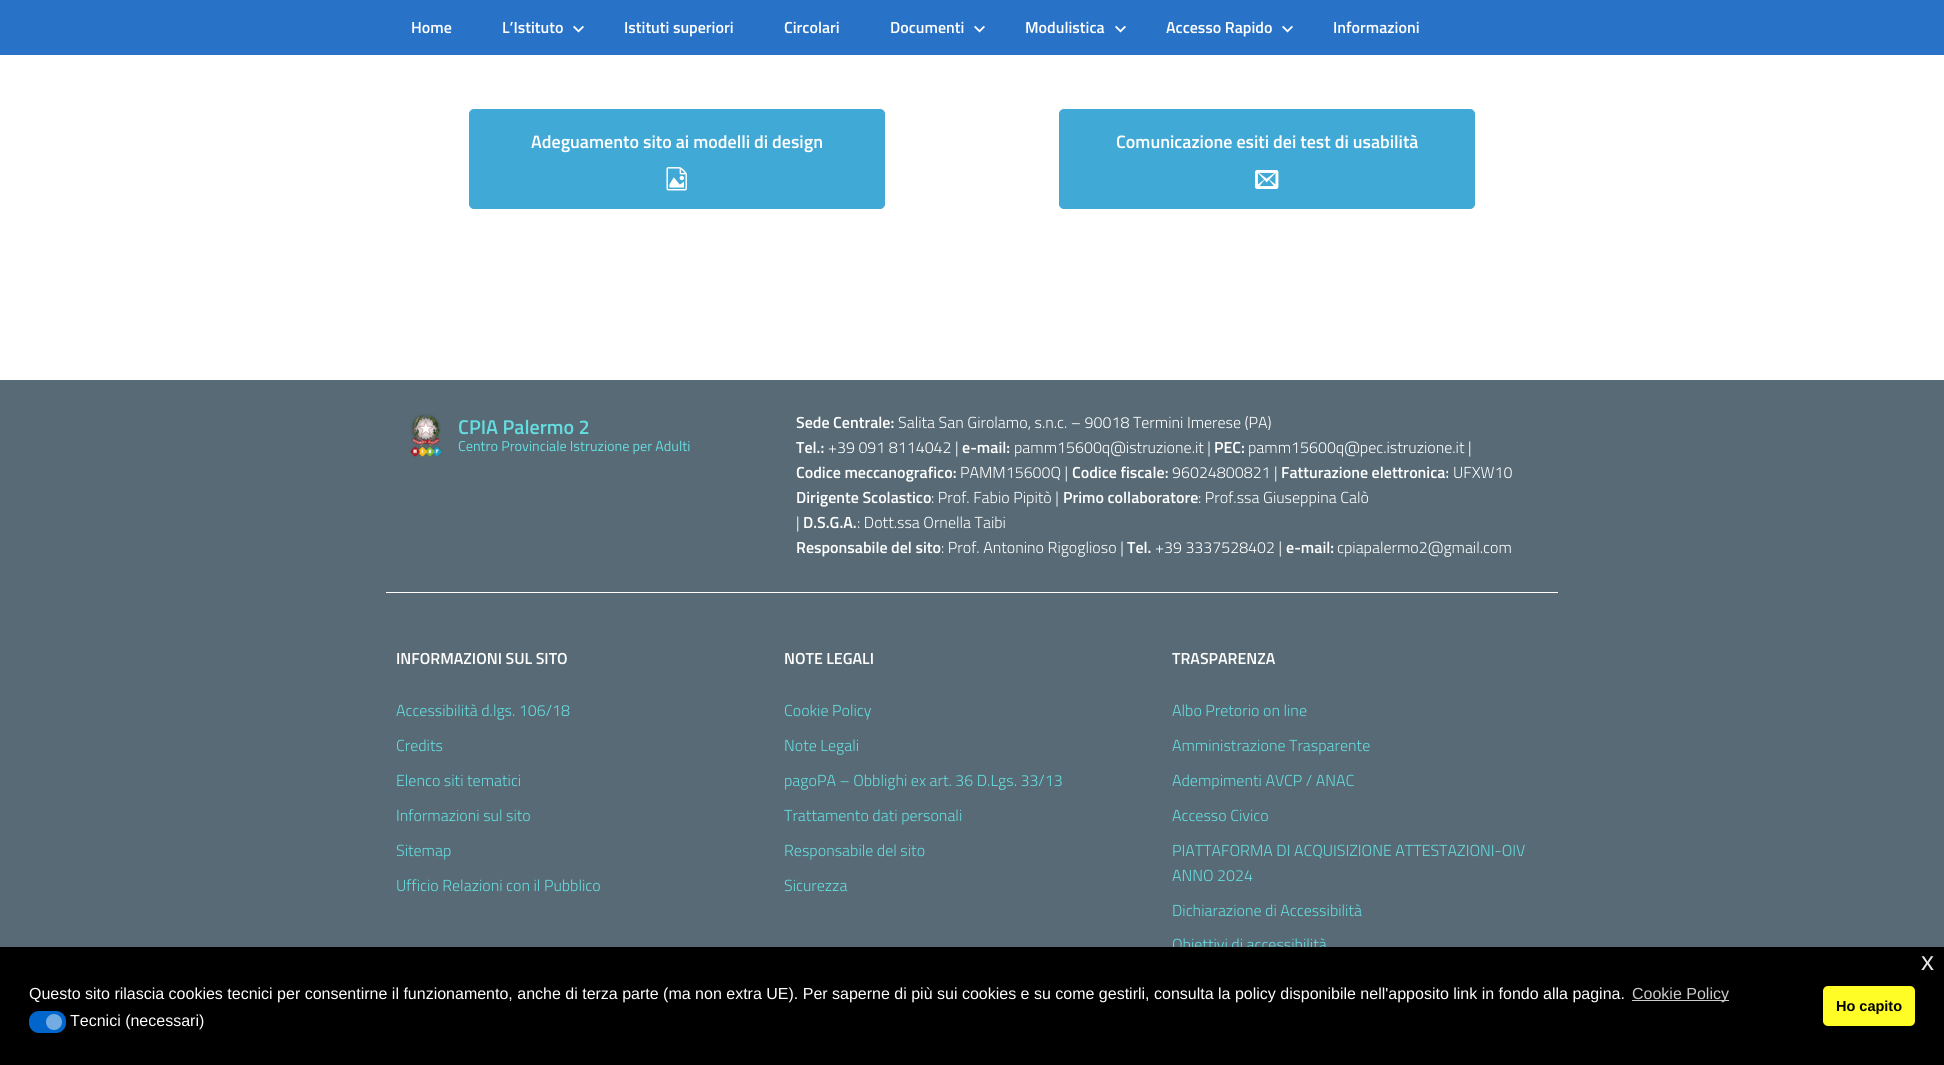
import math
import cairo



def rounded_rect(context, x, y, w, h, r):
    context.new_sub_path()
    for i, (u, v) in enumerate([(x + w - r, y + h - r), (x + r, y + h - r), (x + r, y + r), (x + w - r, y + r)]):
        context.arc(u, v, r, i * math.pi / 2, (i + 1) * math.pi / 2)
    context.close_path()


def draw_image(context, path, x, y, w, h):
    context.save()
    context.set_source_surface(cairo.ImageSurface.create_from_png(path), x, y)
    context.rectangle(x, y, w, h)
    context.fill()
    context.restore()


def draw(context):
    context.set_source_rgb(1, 1, 1)
    context.paint()
    context.set_source_rgb(40 / 255, 114 / 255, 199 / 255)
    context.rectangle(0, 0, 1944, 55)
    context.fill()
    draw_image(context, "images/1.png", 573, 25, 11, 8)
    draw_image(context, "images/1.png", 974, 25, 11, 8)
    draw_image(context, "images/1.png", 1115, 25, 11, 8)
    draw_image(context, "images/1.png", 1282, 25, 11, 8)
    context.set_source_rgb(65 / 255, 169 / 255, 213 / 255)
    rounded_rect(context, 469.5, 109.5, 415, 99, 4.5)
    context.fill_preserve()
    context.set_line_width(1)
    context.stroke()
    draw_image(context, "images/2.png", 666, 167, 21, 24)
    rounded_rect(context, 1059.5, 109.5, 415, 99, 4.5)
    context.fill_preserve()
    context.stroke()
    draw_image(context, "images/3.png", 1255, 170, 24, 19)
    context.set_source_rgb(87 / 255, 106 / 255, 117 / 255)
    context.rectangle(0, 380, 1944, 567)
    context.fill()
    draw_image(context, "images/4.png", 410, 414, 32, 43)
    context.set_source_rgb(1, 1, 1)
    context.rectangle(386, 592, 1172, 1)
    context.fill()
    context.select_font_face("Titillium Web SemiBold")
    context.set_font_size(16)
    context.move_to(411, 33)
    context.show_text("Home")
    context.move_to(502, 33)
    context.show_text("L’Istituto")
    context.move_to(624, 33)
    context.show_text("Istituti superiori")
    context.move_to(784, 33)
    context.show_text("Circolari")
    context.move_to(890, 33)
    context.show_text("Documenti")
    context.move_to(1025, 33)
    context.show_text("Modulistica")
    context.move_to(1166, 33)
    context.show_text("Accesso Rapido")
    context.move_to(1333, 33)
    context.show_text("Informazioni")
    context.set_font_size(18)
    context.move_to(531, 148)
    context.show_text("Adeguamento sito ai modelli di design")
    context.move_to(1116, 148)
    context.show_text("Comunicazione esiti dei test di usabilità")
    context.set_font_size(20)
    context.set_source_rgb(101 / 255, 220 / 255, 223 / 255)
    context.move_to(458, 434)
    context.show_text("CPIA Palermo 2")
    context.select_font_face("Titillium Web")
    context.set_font_size(14.25)
    context.move_to(458, 451)
    context.show_text("Centro Provinciale Istruzione per Adulti")
    context.select_font_face("Titillium Web SemiBold")
    context.set_font_size(16)
    context.set_source_rgb(1, 1, 1)
    context.move_to(796, 428)
    context.show_text("Sede Centrale:")
    context.select_font_face("Titillium Web Light")
    context.move_to(898, 428)
    context.show_text("Salita San Girolamo, s.n.c. – 90018 Termini Imerese (PA)")
    context.select_font_face("Titillium Web SemiBold")
    context.move_to(796, 453)
    context.show_text("Tel.:")
    context.select_font_face("Titillium Web Light")
    context.move_to(828, 453)
    context.show_text("+39 091 8114042 |")
    context.select_font_face("Titillium Web SemiBold")
    context.move_to(962, 453)
    context.show_text("e-mail:")
    context.select_font_face("Titillium Web Light")
    context.move_to(1014, 453)
    context.show_text("pamm15600q@istruzione.it |")
    context.select_font_face("Titillium Web SemiBold")
    context.move_to(1214, 453)
    context.show_text("PEC:")
    context.select_font_face("Titillium Web Light")
    context.move_to(1248, 453)
    context.show_text("pamm15600q@pec.istruzione.it |")
    context.select_font_face("Titillium Web SemiBold")
    context.move_to(796, 478)
    context.show_text("Codice meccanografico:")
    context.select_font_face("Titillium Web Light")
    context.move_to(960, 478)
    context.show_text("PAMM15600Q |")
    context.select_font_face("Titillium Web SemiBold")
    context.move_to(1072, 478)
    context.show_text("Codice fiscale:")
    context.select_font_face("Titillium Web Light")
    context.move_to(1172, 478)
    context.show_text("96024800821 |")
    context.select_font_face("Titillium Web SemiBold")
    context.move_to(1281, 478)
    context.show_text("Fatturazione elettronica:")
    context.select_font_face("Titillium Web Light")
    context.move_to(1453, 478)
    context.show_text("UFXW10")
    context.select_font_face("Titillium Web SemiBold")
    context.move_to(796, 503)
    context.show_text("Dirigente Scolastico")
    context.select_font_face("Titillium Web Light")
    context.move_to(931, 503)
    context.show_text(": Prof. Fabio Pipitò |")
    context.select_font_face("Titillium Web SemiBold")
    context.move_to(1063, 503)
    context.show_text("Primo collaboratore")
    context.select_font_face("Titillium Web Light")
    context.move_to(1198, 503)
    context.show_text(": Prof.ssa Giuseppina Calò")
    context.move_to(796, 528)
    context.show_text("|")
    context.select_font_face("Titillium Web SemiBold")
    context.move_to(803, 528)
    context.show_text("D.S.G.A.")
    context.select_font_face("Titillium Web Light")
    context.move_to(857, 528)
    context.show_text(": Dott.ssa Ornella Taibi")
    context.select_font_face("Titillium Web SemiBold")
    context.move_to(796, 553)
    context.show_text("Responsabile del sito")
    context.select_font_face("Titillium Web Light")
    context.move_to(941, 553)
    context.show_text(": Prof. Antonino Rigoglioso |")
    context.select_font_face("Titillium Web SemiBold")
    context.move_to(1127, 553)
    context.show_text("Tel.")
    context.select_font_face("Titillium Web Light")
    context.move_to(1155, 553)
    context.show_text("+39 3337528402 |")
    context.select_font_face("Titillium Web SemiBold")
    context.move_to(1286, 553)
    context.show_text("e-mail:")
    context.select_font_face("Titillium Web Light")
    context.move_to(1337, 553)
    context.show_text("cpiapalermo2@gmail.com")
    context.select_font_face("Titillium Web SemiBold")
    context.move_to(396, 664)
    context.show_text("INFORMAZIONI SUL SITO")
    context.select_font_face("Titillium Web Light")
    context.set_source_rgb(101 / 255, 220 / 255, 223 / 255)
    context.move_to(396, 716)
    context.show_text("Accessibilità d.lgs. 106/18")
    context.move_to(396, 751)
    context.show_text("Credits")
    context.move_to(396, 786)
    context.show_text("Elenco siti tematici")
    context.move_to(396, 821)
    context.show_text("Informazioni sul sito")
    context.move_to(396, 856)
    context.show_text("Sitemap")
    context.move_to(396, 891)
    context.show_text("Ufficio Relazioni con il Pubblico")
    context.select_font_face("Titillium Web SemiBold")
    context.set_source_rgb(1, 1, 1)
    context.move_to(784, 664)
    context.show_text("NOTE LEGALI")
    context.select_font_face("Titillium Web Light")
    context.set_source_rgb(101 / 255, 220 / 255, 223 / 255)
    context.move_to(784, 716)
    context.show_text("Cookie Policy")
    context.move_to(784, 751)
    context.show_text("Note Legali")
    context.move_to(784, 786)
    context.show_text("pagoPA – Obblighi ex art. 36 D.Lgs. 33/13")
    context.move_to(784, 821)
    context.show_text("Trattamento dati personali")
    context.move_to(784, 856)
    context.show_text("Responsabile del sito")
    context.move_to(784, 891)
    context.show_text("Sicurezza")
    context.select_font_face("Titillium Web SemiBold")
    context.set_source_rgb(1, 1, 1)
    context.move_to(1172, 664)
    context.show_text("TRASPARENZA")
    context.select_font_face("Titillium Web Light")
    context.set_source_rgb(101 / 255, 220 / 255, 223 / 255)
    context.move_to(1172, 716)
    context.show_text("Albo Pretorio on line")
    context.move_to(1172, 751)
    context.show_text("Amministrazione Trasparente")
    context.move_to(1172, 786)
    context.show_text("Adempimenti AVCP / ANAC")
    context.move_to(1172, 821)
    context.show_text("Accesso Civico")
    context.move_to(1172, 856)
    context.show_text("PIATTAFORMA DI ACQUISIZIONE ATTESTAZIONI-OIV")
    context.move_to(1172, 881)
    context.show_text("ANNO 2024")
    context.move_to(1172, 916)
    context.show_text("Dichiarazione di Accessibilità")
    context.move_to(1172, 950)
    context.show_text("Obiettivi di accessibilità")
    context.set_source_rgb(0, 0, 0)
    context.rectangle(0, 947, 1944, 118)
    context.fill()
    context.select_font_face("Liberation Sans")
    context.set_font_size(26)
    context.set_source_rgb(230 / 255, 230 / 255, 230 / 255)
    context.move_to(1921, 970)
    context.show_text("x")
    context.set_font_size(16)
    context.set_source_rgb(1, 1, 1)
    context.move_to(29, 999)
    context.show_text("Questo sito rilascia cookies tecnici per consentirne il funzionamento, anche di terza parte (ma non extra UE). Per saperne di più sui cookies e su come gestirli, consulta la policy disponibile nell'apposito link in fondo alla pagina.")
    context.set_source_rgb(204 / 255, 204 / 255, 204 / 255)
    context.rectangle(1632, 1000, 97, 1)
    context.fill()
    context.move_to(1632, 999)
    context.show_text("Cookie Policy")
    context.set_source_rgb(0, 102 / 255, 204 / 255)
    rounded_rect(context, 29, 1011, 37, 22, 10)
    context.fill()
    context.set_source_rgb(115 / 255, 171 / 255, 227 / 255)
    context.arc(54, 1022, 8, 0, 2 * math.pi)
    context.fill()
    context.set_source_rgb(1, 1, 1)
    context.move_to(70, 1026)
    context.show_text("Tecnici (necessari)")
    context.set_source_rgb(1, 252 / 255, 38 / 255)
    rounded_rect(context, 1823, 986, 92, 40, 5)
    context.fill()
    context.select_font_face("Liberation Sans", cairo.FontSlant.NORMAL, cairo.FontWeight.BOLD)
    context.set_font_size(14.5)
    context.set_source_rgb(0, 0, 0)
    context.move_to(1836, 1011)
    context.show_text("Ho capito")


surface = cairo.ImageSurface(cairo.Format.RGB24, 1944, 1065)
context = cairo.Context(surface)
options = cairo.FontOptions()
options.set_hint_metrics(cairo.HintMetrics.OFF)
options.set_hint_style(cairo.HintStyle.NONE)
context.set_font_options(options)
context.set_miter_limit(4)
draw(context)
surface.write_to_png("out.png")
